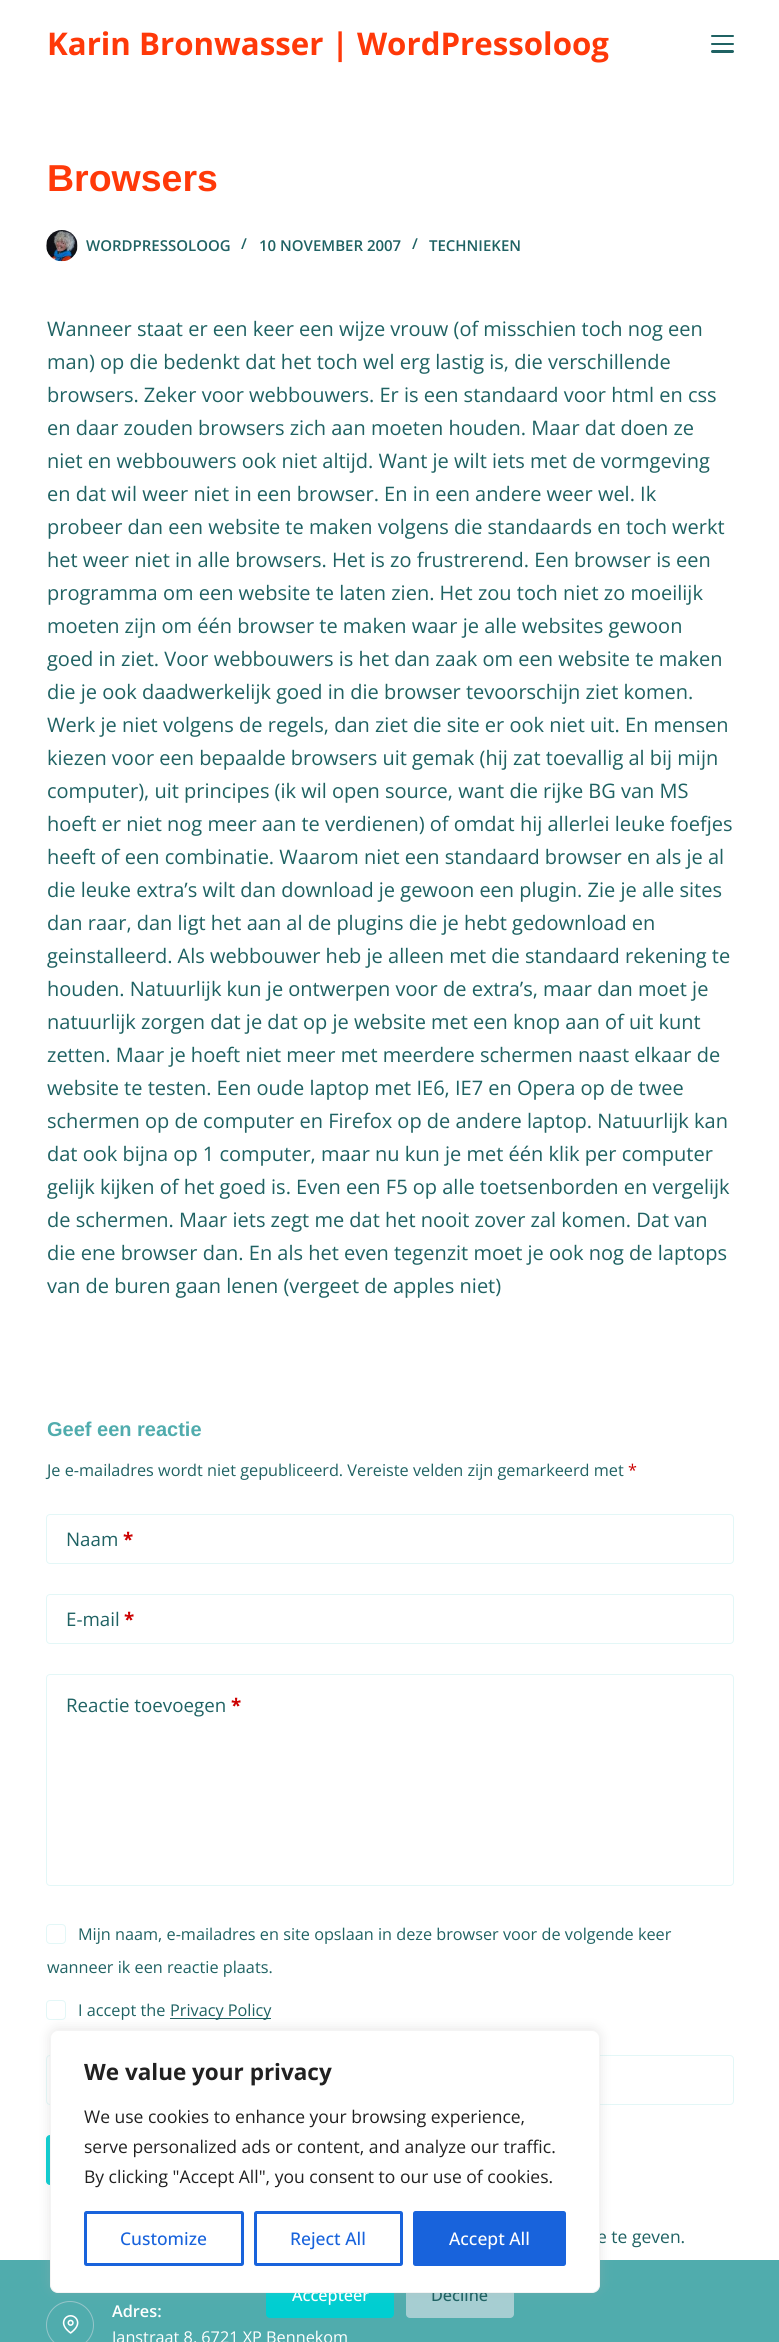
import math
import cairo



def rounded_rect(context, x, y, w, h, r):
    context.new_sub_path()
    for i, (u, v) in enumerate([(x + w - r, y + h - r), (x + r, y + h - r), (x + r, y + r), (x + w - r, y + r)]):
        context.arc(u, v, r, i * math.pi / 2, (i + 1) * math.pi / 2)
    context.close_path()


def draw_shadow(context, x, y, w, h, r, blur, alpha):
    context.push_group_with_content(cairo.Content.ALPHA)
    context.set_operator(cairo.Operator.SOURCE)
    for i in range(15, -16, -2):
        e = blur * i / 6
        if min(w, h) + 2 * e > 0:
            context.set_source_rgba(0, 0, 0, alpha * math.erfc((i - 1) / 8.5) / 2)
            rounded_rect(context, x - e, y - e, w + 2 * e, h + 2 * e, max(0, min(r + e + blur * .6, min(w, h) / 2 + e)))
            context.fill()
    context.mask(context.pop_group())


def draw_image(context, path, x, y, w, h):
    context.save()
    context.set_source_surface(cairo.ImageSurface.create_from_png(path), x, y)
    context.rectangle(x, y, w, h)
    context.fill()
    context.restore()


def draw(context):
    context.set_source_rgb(1, 1, 1)
    context.paint()
    context.set_source_rgb(31 / 255, 98 / 255, 99 / 255)
    rounded_rect(context, 711, 35, 23, 2, 1)
    context.fill()
    rounded_rect(context, 711, 43, 23, 2, 1)
    context.fill()
    rounded_rect(context, 711, 50, 23, 3, 1.5)
    context.fill()
    draw_image(context, "images/1.png", 46, 230, 32, 32)
    rounded_rect(context, 46.5, 1514.5, 687, 49, 3.5)
    context.set_source_rgb(227 / 255, 247 / 255, 247 / 255)
    context.set_line_width(1)
    context.stroke()
    rounded_rect(context, 46.5, 1594.5, 687, 49, 3.5)
    context.stroke()
    rounded_rect(context, 46.5, 1674.5, 687, 211, 3.5)
    context.stroke()
    rounded_rect(context, 46.5, 1924.5, 19, 19, 3.5)
    context.stroke()
    rounded_rect(context, 46.5, 2000.5, 19, 19, 3.5)
    context.stroke()
    context.set_source_rgb(31 / 255, 98 / 255, 99 / 255)
    context.rectangle(170, 2018, 101, 1)
    context.fill()
    rounded_rect(context, 46.5, 2055.5, 687, 49, 3.5)
    context.set_source_rgb(227 / 255, 247 / 255, 247 / 255)
    context.stroke()
    context.set_source_rgb(0, 206 / 255, 209 / 255)
    rounded_rect(context, 46, 2135, 197, 50, 4)
    context.fill()
    context.set_source_rgb(80 / 255, 172 / 255, 173 / 255)
    context.rectangle(0, 2260, 779, 82)
    context.fill()
    context.arc(70, 2325, 23.5, 0, 2 * math.pi)
    context.set_source_rgb(149 / 255, 197 / 255, 201 / 255)
    context.stroke()
    draw_image(context, "images/2.png", 62, 2315, 17, 19)
    context.set_source_rgb(0, 206 / 255, 209 / 255)
    rounded_rect(context, 266, 2274, 128, 44, 4)
    context.fill()
    context.set_source_rgb(166 / 255, 206 / 255, 210 / 255)
    rounded_rect(context, 406, 2274, 108, 44, 4)
    context.fill()
    context.set_source_rgb(172 / 255, 171 / 255, 171 / 255)
    draw_shadow(context, 50, 2029, 550, 262, 8, 6, 0.3)
    context.select_font_face("Open Sans", cairo.FontSlant.NORMAL, cairo.FontWeight.BOLD)
    context.set_font_size(31.25)
    context.set_source_rgb(1, 57 / 255, 9 / 255)
    context.move_to(47, 55)
    context.show_text("Karin Bronwasser | WordPressoloog")
    context.select_font_face("Liberation Sans", cairo.FontSlant.NORMAL, cairo.FontWeight.BOLD)
    context.set_font_size(37.5)
    context.move_to(47, 191)
    context.show_text("Browsers")
    context.select_font_face("Open Sans SemiBold")
    context.set_font_size(15)
    context.set_source_rgb(31 / 255, 98 / 255, 99 / 255)
    context.move_to(86, 251)
    context.show_text("WORDPRESSOLOOG")
    context.move_to(241, 249)
    context.show_text("/")
    context.move_to(259, 251)
    context.show_text("10 NOVEMBER 2007")
    context.move_to(412, 249)
    context.show_text("/")
    context.move_to(429, 251)
    context.show_text("TECHNIEKEN")
    context.select_font_face("Open Sans")
    context.set_font_size(20)
    context.move_to(47, 336)
    context.show_text("Wanneer staat er een keer een wijze vrouw (of misschien toch nog een")
    context.move_to(47, 369)
    context.show_text("man) op die bedenkt dat het toch wel erg lastig is, die verschillende")
    context.move_to(47, 402)
    context.show_text("browsers. Zeker voor webbouwers. Er is een standaard voor html en css")
    context.move_to(47, 435)
    context.show_text("en daar zouden browsers zich aan moeten houden. Maar dat doen ze")
    context.move_to(47, 468)
    context.show_text("niet en webbouwers ook niet altijd. Want je wilt iets met de vormgeving")
    context.move_to(47, 501)
    context.show_text("en dat wil weer niet in een browser. En in een andere weer wel. Ik")
    context.move_to(47, 534)
    context.show_text("probeer dan een website te maken volgens die standaards en toch werkt")
    context.move_to(47, 567)
    context.show_text("het weer niet in alle browsers. Het is zo frustrerend. Een browser is een")
    context.move_to(47, 600)
    context.show_text("programma om een website te laten zien. Het zou toch niet zo moeilijk")
    context.move_to(47, 633)
    context.show_text("moeten zijn om één browser te maken waar je alle websites gewoon")
    context.move_to(47, 666)
    context.show_text("goed in ziet. Voor webbouwers is het dan zaak om een website te maken")
    context.move_to(47, 699)
    context.show_text("die je ook daadwerkelijk goed in die browser tevoorschijn ziet komen.")
    context.move_to(47, 732)
    context.show_text("Werk je niet volgens de regels, dan ziet die site er ook niet uit. En mensen")
    context.move_to(47, 765)
    context.show_text("kiezen voor een bepaalde browsers uit gemak (hij zat toevallig al bij mijn")
    context.move_to(47, 798)
    context.show_text("computer), uit principes (ik wil open source, want die rijke BG van MS")
    context.move_to(47, 831)
    context.show_text("hoeft er niet nog meer aan te verdienen) of omdat hij allerlei leuke foefjes")
    context.move_to(47, 864)
    context.show_text("heeft of een combinatie. Waarom niet een standaard browser en als je al")
    context.move_to(47, 897)
    context.show_text("die leuke extra’s wilt dan download je gewoon een plugin. Zie je alle sites")
    context.move_to(47, 930)
    context.show_text("dan raar, dan ligt het aan al de plugins die je hebt gedownload en")
    context.move_to(47, 963)
    context.show_text("geinstalleerd. Als webbouwer heb je alleen met die standaard rekening te")
    context.move_to(47, 996)
    context.show_text("houden. Natuurlijk kun je ontwerpen voor de extra’s, maar dan moet je")
    context.move_to(47, 1029)
    context.show_text("natuurlijk zorgen dat je dat op je website met een knop aan of uit kunt")
    context.move_to(47, 1062)
    context.show_text("zetten. Maar je hoeft niet meer met meerdere schermen naast elkaar de")
    context.move_to(47, 1095)
    context.show_text("website te testen. Een oude laptop met IE6, IE7 en Opera op de twee")
    context.move_to(47, 1128)
    context.show_text("schermen op de computer en Firefox op de andere laptop. Natuurlijk kan")
    context.move_to(47, 1161)
    context.show_text("dat ook bijna op 1 computer, maar nu kun je met één klik per computer")
    context.move_to(47, 1194)
    context.show_text("gelijk kijken of het goed is. Even een F5 op alle toetsenborden en vergelijk")
    context.move_to(47, 1227)
    context.show_text("de schermen. Maar iets zegt me dat het nooit zover zal komen. Dat van")
    context.move_to(47, 1260)
    context.show_text("die ene browser dan. En als het even tegenzit moet je ook nog de laptops")
    context.move_to(47, 1293)
    context.show_text("van de buren gaan lenen (vergeet de apples niet)")
    context.select_font_face("Liberation Sans", cairo.FontSlant.NORMAL, cairo.FontWeight.BOLD)
    context.set_source_rgb(80 / 255, 172 / 255, 173 / 255)
    context.move_to(47, 1436)
    context.show_text("Geef een reactie")
    context.select_font_face("Open Sans")
    context.set_font_size(16.25)
    context.set_source_rgb(31 / 255, 98 / 255, 99 / 255)
    context.move_to(47, 1476)
    context.show_text("Je e-mailadres wordt niet gepubliceerd. Vereiste velden zijn gemarkeerd met")
    context.set_source_rgb(204 / 255, 0, 0)
    context.move_to(628, 1476)
    context.show_text("*")
    context.set_font_size(18.75)
    context.set_source_rgb(31 / 255, 98 / 255, 99 / 255)
    context.move_to(66, 1546)
    context.show_text("Naam")
    context.select_font_face("Open Sans", cairo.FontSlant.NORMAL, cairo.FontWeight.BOLD)
    context.set_source_rgb(204 / 255, 0, 0)
    context.move_to(123, 1546)
    context.show_text("*")
    context.select_font_face("Open Sans")
    context.set_source_rgb(31 / 255, 98 / 255, 99 / 255)
    context.move_to(66, 1626)
    context.show_text("E-mail")
    context.select_font_face("Open Sans", cairo.FontSlant.NORMAL, cairo.FontWeight.BOLD)
    context.set_source_rgb(204 / 255, 0, 0)
    context.move_to(124, 1626)
    context.show_text("*")
    context.select_font_face("Open Sans")
    context.set_source_rgb(31 / 255, 98 / 255, 99 / 255)
    context.move_to(66, 1712)
    context.show_text("Reactie toevoegen")
    context.select_font_face("Open Sans", cairo.FontSlant.NORMAL, cairo.FontWeight.BOLD)
    context.set_source_rgb(204 / 255, 0, 0)
    context.move_to(231, 1712)
    context.show_text("*")
    context.select_font_face("Open Sans")
    context.set_font_size(16.25)
    context.set_source_rgb(31 / 255, 98 / 255, 99 / 255)
    context.move_to(78, 1940)
    context.show_text("Mijn naam, e-mailadres en site opslaan in deze browser voor de volgende keer")
    context.move_to(47, 1973)
    context.show_text("wanneer ik een reactie plaats.")
    context.move_to(78, 2016)
    context.show_text("I accept the")
    context.move_to(170, 2016)
    context.show_text("Privacy Policy")
    context.select_font_face("Open Sans SemiBold")
    context.set_source_rgb(1, 1, 1)
    context.move_to(112, 2317)
    context.show_text("Adres:")
    context.select_font_face("Open Sans")
    context.move_to(112, 2343)
    context.show_text("Janstraat 8, 6721 XP Bennekom")
    context.set_font_size(17.5)
    context.set_source_rgb(31 / 255, 98 / 255, 99 / 255)
    context.move_to(597, 2243)
    context.show_text("e te geven.")
    context.select_font_face("Open Sans Medium")
    context.set_font_size(16.25)
    context.set_source_rgb(1, 1, 1)
    context.move_to(292, 2301)
    context.show_text("Accepteer")
    context.set_source_rgb(31 / 255, 98 / 255, 99 / 255)
    context.move_to(431, 2301)
    context.show_text("Decline")
    context.set_source_rgb(1, 1, 1)
    rounded_rect(context, 50.5, 2030.5, 549, 262, 7.5)
    context.fill_preserve()
    context.set_source_rgb(244 / 255, 244 / 255, 244 / 255)
    context.stroke()
    context.set_source_rgb(24 / 255, 99 / 255, 220 / 255)
    rounded_rect(context, 414.5, 2212.5, 150, 52, 1)
    context.fill_preserve()
    context.set_line_width(3)
    context.stroke()
    context.set_font_size(17.5)
    context.set_source_rgb(1, 1, 1)
    context.move_to(449, 2245)
    context.show_text("Accept All")
    rounded_rect(context, 255.5, 2212.5, 146, 52, 1)
    context.set_source_rgb(24 / 255, 99 / 255, 220 / 255)
    context.stroke()
    context.move_to(290, 2245)
    context.show_text("Reject All")
    rounded_rect(context, 85.5, 2212.5, 157, 52, 1)
    context.stroke()
    context.move_to(120, 2245)
    context.show_text("Customize")
    context.select_font_face("Open Sans")
    context.set_source_rgb(33 / 255, 33 / 255, 33 / 255)
    context.move_to(84, 2183)
    context.show_text("By clicking \"Accept All\", you consent to our use of cookies.")
    context.move_to(84, 2153)
    context.show_text("serve personalized ads or content, and analyze our traffic.")
    context.move_to(84, 2123)
    context.show_text("We use cookies to enhance your browsing experience,")
    context.select_font_face("Open Sans", cairo.FontSlant.NORMAL, cairo.FontWeight.BOLD)
    context.set_font_size(22.5)
    context.move_to(84, 2080)
    context.show_text("We value your privacy")


surface = cairo.ImageSurface(cairo.Format.RGB24, 779, 2342)
context = cairo.Context(surface)
options = cairo.FontOptions()
options.set_hint_metrics(cairo.HintMetrics.OFF)
options.set_hint_style(cairo.HintStyle.NONE)
context.set_font_options(options)
context.set_miter_limit(4)
draw(context)
surface.write_to_png("out.png")
